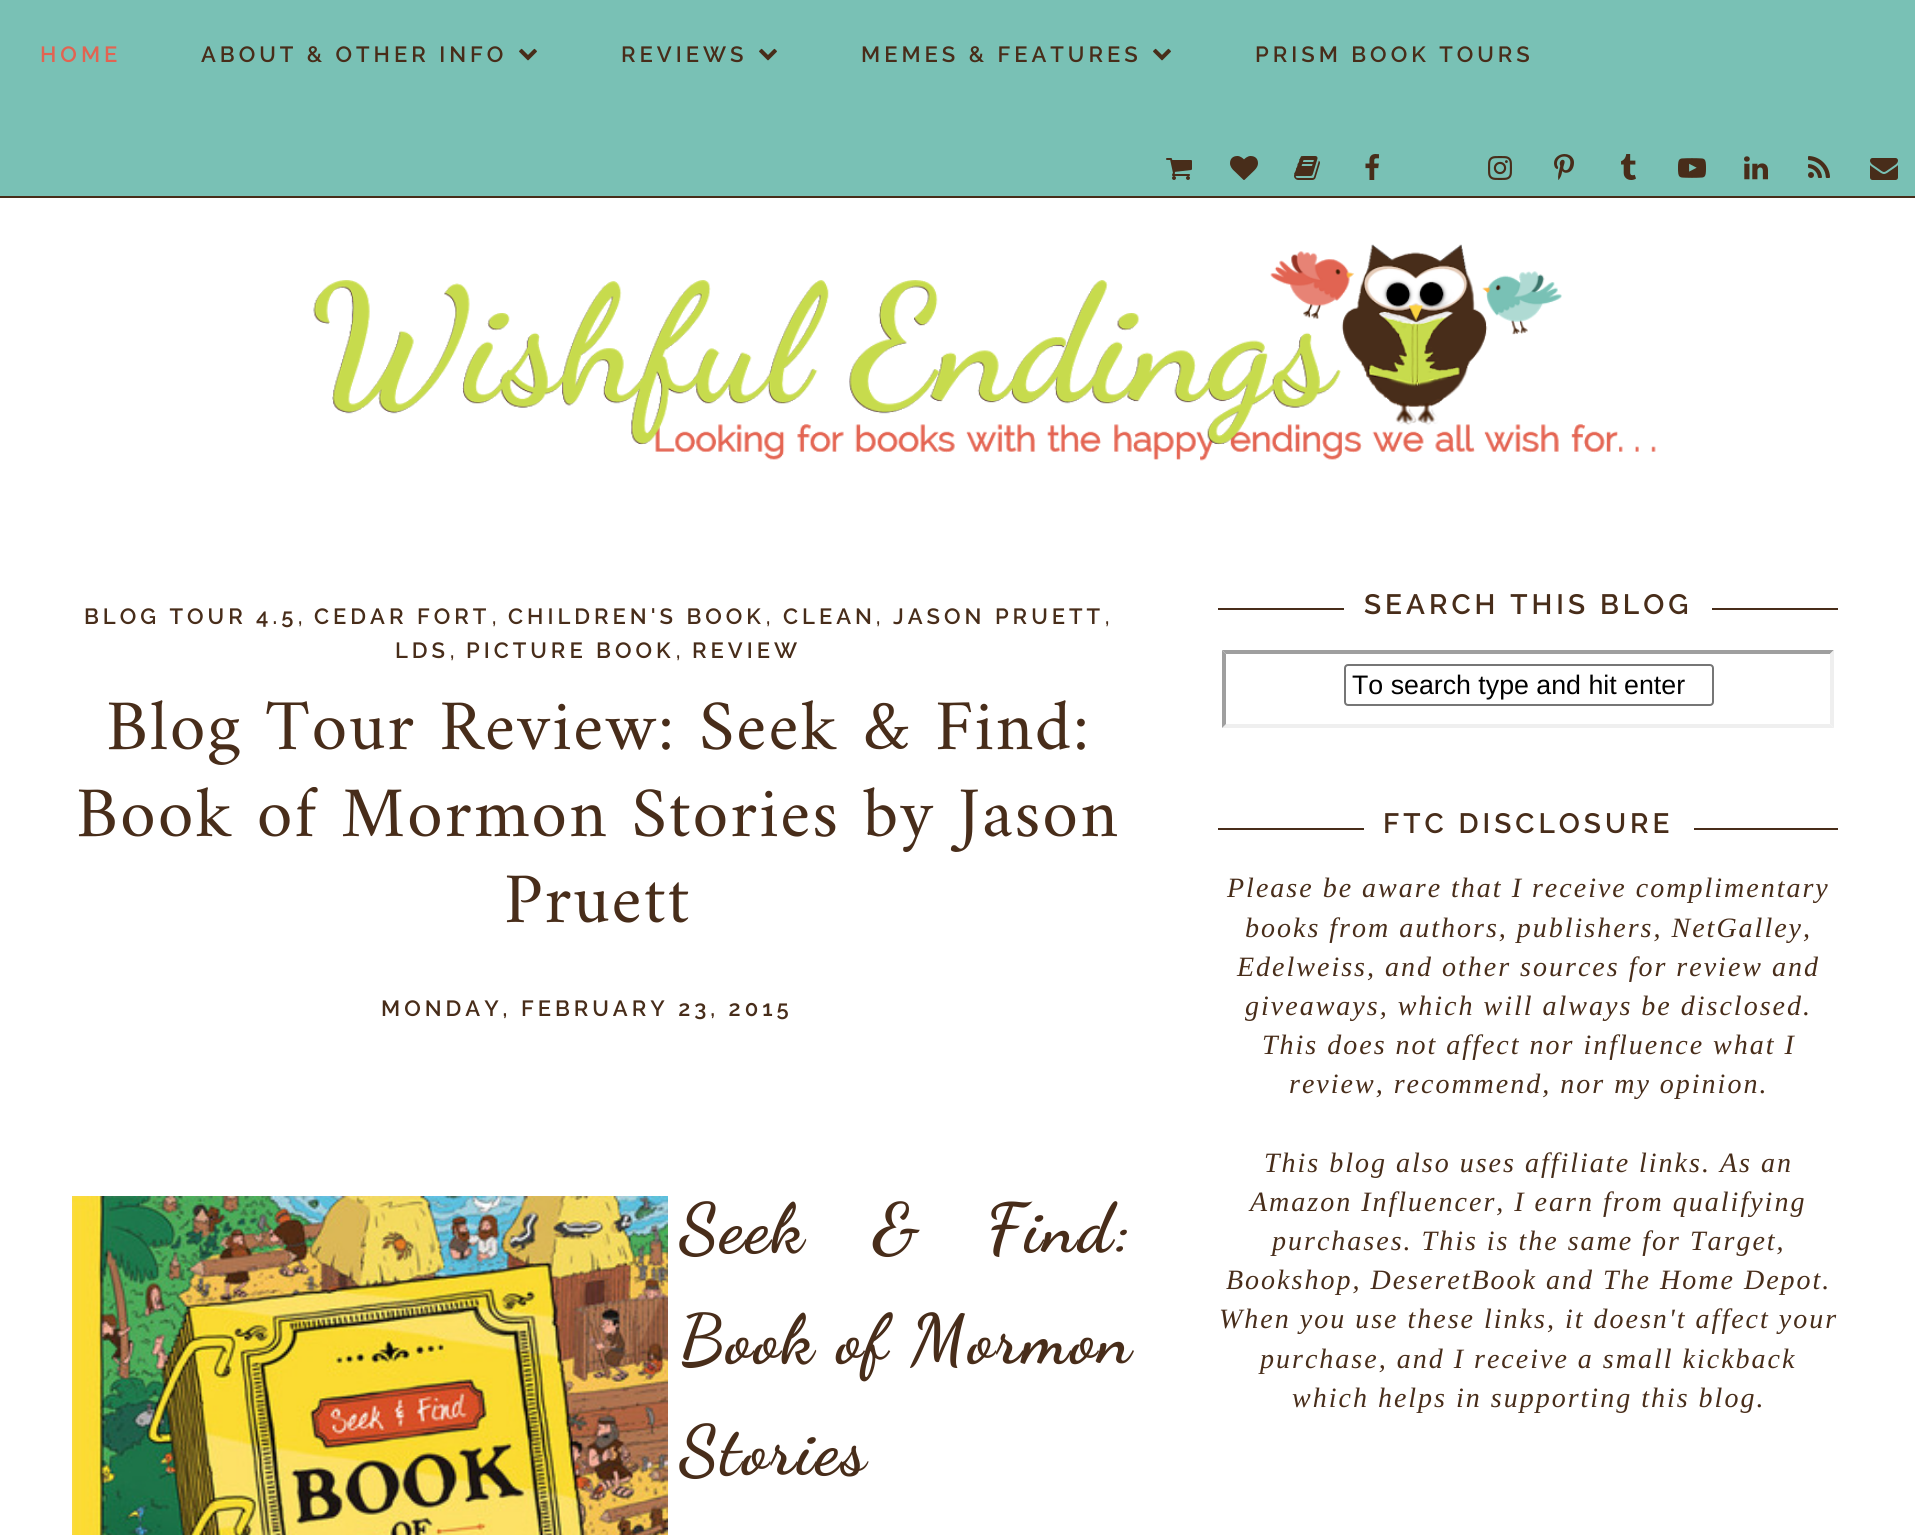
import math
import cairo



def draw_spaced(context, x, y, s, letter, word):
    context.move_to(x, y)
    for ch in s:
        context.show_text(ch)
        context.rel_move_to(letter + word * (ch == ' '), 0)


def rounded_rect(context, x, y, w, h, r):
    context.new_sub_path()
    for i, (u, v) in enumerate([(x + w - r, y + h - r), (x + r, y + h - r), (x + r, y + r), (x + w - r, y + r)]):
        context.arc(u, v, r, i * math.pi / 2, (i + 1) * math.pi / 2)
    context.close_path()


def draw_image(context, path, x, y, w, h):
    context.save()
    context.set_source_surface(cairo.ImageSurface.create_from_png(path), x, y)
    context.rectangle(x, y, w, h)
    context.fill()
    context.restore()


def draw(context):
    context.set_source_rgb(1, 1, 1)
    context.paint()
    context.set_source_rgb(121 / 255, 193 / 255, 181 / 255)
    context.rectangle(0, 0, 1915, 196)
    context.fill()
    context.set_source_rgb(72 / 255, 45 / 255, 26 / 255)
    context.rectangle(0, 196, 1915, 2)
    context.fill()
    draw_image(context, "images/1.png", 519, 48, 18, 13)
    draw_image(context, "images/1.png", 759, 48, 18, 13)
    draw_image(context, "images/1.png", 1153, 48, 18, 13)
    draw_image(context, "images/2.png", 1166, 158, 26, 22)
    draw_image(context, "images/3.png", 1230, 156, 28, 24)
    draw_image(context, "images/4.png", 1294, 156, 26, 24)
    draw_image(context, "images/5.png", 1365, 154, 14, 26)
    draw_image(context, "images/6.png", 1488, 156, 24, 24)
    draw_image(context, "images/7.png", 1554, 154, 20, 26)
    draw_image(context, "images/8.png", 1621, 154, 15, 26)
    draw_image(context, "images/9.png", 1678, 158, 28, 20)
    draw_image(context, "images/10.png", 1744, 156, 24, 24)
    draw_image(context, "images/11.png", 1808, 156, 22, 22)
    draw_image(context, "images/12.png", 1870, 158, 28, 22)
    draw_image(context, "images/13.png", 313, 244, 1343, 217)
    draw_image(context, "images/14.png", 72, 1196, 596, 339)
    context.rectangle(1218, 608, 620, 2)
    context.fill()
    context.set_source_rgb(1, 1, 1)
    context.rectangle(1344, 608, 368, 2)
    context.fill()
    context.set_source_rgb(159 / 255, 159 / 255, 159 / 255)
    context.new_path()
    context.move_to(1222, 650)
    context.line_to(1834, 650)
    context.line_to(1830, 654)
    context.line_to(1226, 654)
    context.close_path()
    context.fill()
    context.set_source_rgb(239 / 255, 239 / 255, 239 / 255)
    context.new_path()
    context.move_to(1834, 650)
    context.line_to(1834, 728)
    context.line_to(1830, 724)
    context.line_to(1830, 654)
    context.close_path()
    context.fill()
    context.new_path()
    context.move_to(1834, 728)
    context.line_to(1222, 728)
    context.line_to(1226, 724)
    context.line_to(1830, 724)
    context.close_path()
    context.fill()
    context.set_source_rgb(159 / 255, 159 / 255, 159 / 255)
    context.new_path()
    context.move_to(1222, 728)
    context.line_to(1222, 650)
    context.line_to(1226, 654)
    context.line_to(1226, 724)
    context.close_path()
    context.fill()
    rounded_rect(context, 1345, 665, 368, 40, 3)
    context.set_source_rgb(118 / 255, 118 / 255, 118 / 255)
    context.stroke()
    context.set_source_rgb(72 / 255, 45 / 255, 26 / 255)
    context.rectangle(1218, 828, 620, 2)
    context.fill()
    context.set_source_rgb(1, 1, 1)
    context.rectangle(1364, 828, 330, 2)
    context.fill()
    context.select_font_face("Raleway SemiBold")
    context.set_font_size(22)
    context.set_source_rgb(225 / 255, 100 / 255, 82 / 255)
    draw_spaced(context, 40, 62, "HOME", 4, 0)
    context.set_source_rgb(72 / 255, 45 / 255, 26 / 255)
    draw_spaced(context, 201, 62, "ABOUT & OTHER INFO", 4, 0)
    draw_spaced(context, 621, 62, "REVIEWS", 4, 0)
    draw_spaced(context, 861, 62, "MEMES & FEATURES", 4, 0)
    draw_spaced(context, 1255, 62, "PRISM BOOK TOURS", 4, 0)
    draw_spaced(context, 84, 624, "BLOG TOUR 4.5", 4, 0)
    context.select_font_face("Raleway")
    context.set_font_size(28)
    draw_spaced(context, 297, 624, ",", 2, 0)
    context.select_font_face("Raleway SemiBold")
    context.set_font_size(22)
    draw_spaced(context, 314, 624, "CEDAR FORT", 4, 0)
    context.select_font_face("Raleway")
    context.set_font_size(28)
    draw_spaced(context, 491, 624, ",", 2, 0)
    context.select_font_face("Raleway SemiBold")
    context.set_font_size(22)
    draw_spaced(context, 508, 624, "CHILDREN'S BOOK", 4, 0)
    context.select_font_face("Raleway")
    context.set_font_size(28)
    draw_spaced(context, 765, 624, ",", 2, 0)
    context.select_font_face("Raleway SemiBold")
    context.set_font_size(22)
    draw_spaced(context, 783, 624, "CLEAN", 4, 0)
    context.select_font_face("Raleway")
    context.set_font_size(28)
    draw_spaced(context, 875, 624, ",", 2, 0)
    context.select_font_face("Raleway SemiBold")
    context.set_font_size(22)
    draw_spaced(context, 893, 624, "JASON PRUETT", 4, 0)
    context.select_font_face("Raleway")
    context.set_font_size(28)
    draw_spaced(context, 1104, 624, ",", 2, 0)
    context.select_font_face("Raleway SemiBold")
    context.set_font_size(22)
    draw_spaced(context, 395, 658, "LDS", 4, 0)
    context.select_font_face("Raleway")
    context.set_font_size(28)
    draw_spaced(context, 449, 658, ",", 2, 0)
    context.select_font_face("Raleway SemiBold")
    context.set_font_size(22)
    draw_spaced(context, 466, 658, "PICTURE BOOK", 4, 0)
    context.select_font_face("Raleway")
    context.set_font_size(28)
    draw_spaced(context, 675, 658, ",", 2, 0)
    context.select_font_face("Raleway SemiBold")
    context.set_font_size(22)
    draw_spaced(context, 692, 658, "REVIEW", 4, 0)
    context.select_font_face("Amiri")
    context.set_font_size(72)
    draw_spaced(context, 106, 749, "Blog Tour Review: Seek & Find:", 2, 0)
    draw_spaced(context, 76, 836, "Book of Mormon Stories by Jason", 2, 0)
    draw_spaced(context, 504, 922, "Pruett", 2, 0)
    context.select_font_face("Raleway SemiBold")
    context.set_font_size(22)
    draw_spaced(context, 381, 1016, "MONDAY, FEBRUARY 23, 2015", 4, 0)
    context.select_font_face("Dancing Script", cairo.FontSlant.NORMAL, cairo.FontWeight.BOLD)
    context.set_font_size(69.25)
    draw_spaced(context, 679, 1251, "Seek & Find:", 2, 46)
    draw_spaced(context, 679, 1362, "Book of Mormon", 2, 1)
    draw_spaced(context, 679, 1473, "Stories", 2, 0)
    context.select_font_face("Raleway SemiBold")
    context.set_font_size(28)
    draw_spaced(context, 1364, 614, "SEARCH THIS BLOG", 4, 0)
    context.select_font_face("Liberation Sans")
    context.set_font_size(26.75)
    context.set_source_rgb(0, 0, 0)
    context.move_to(1352, 694)
    context.show_text("To search type and hit enter")
    context.select_font_face("Raleway SemiBold")
    context.set_font_size(28)
    context.set_source_rgb(72 / 255, 45 / 255, 26 / 255)
    draw_spaced(context, 1383, 833, "FTC DISCLOSURE", 4, 0)
    context.select_font_face("Liberation Serif", cairo.FontSlant.ITALIC)
    draw_spaced(context, 1227, 897, "Please be aware that I receive complimentary", 2, 0)
    draw_spaced(context, 1245, 937, "books from authors, publishers, NetGalley,", 2, 0)
    draw_spaced(context, 1237, 976, "Edelweiss, and other sources for review and", 2, 0)
    draw_spaced(context, 1245, 1015, "giveaways, which will always be disclosed.", 2, 0)
    draw_spaced(context, 1262, 1054, "This does not affect nor influence what I", 2, 0)
    draw_spaced(context, 1289, 1093, "review, recommend, nor my opinion.", 2, 0)
    draw_spaced(context, 1264, 1172, "This blog also uses affiliate links. As an", 2, 0)
    draw_spaced(context, 1250, 1211, "Amazon Influencer, I earn from qualifying", 2, 0)
    draw_spaced(context, 1272, 1250, "purchases. This is the same for Target,", 2, 0)
    draw_spaced(context, 1226, 1289, "Bookshop, DeseretBook and The Home Depot.", 2, 0)
    draw_spaced(context, 1219, 1328, "When you use these links, it doesn't affect your", 2, 0)
    draw_spaced(context, 1260, 1368, "purchase, and I receive a small kickback", 2, 0)
    draw_spaced(context, 1292, 1407, "which helps in supporting this blog.", 2, 0)


surface = cairo.ImageSurface(cairo.Format.RGB24, 1915, 1535)
context = cairo.Context(surface)
options = cairo.FontOptions()
options.set_hint_metrics(cairo.HintMetrics.OFF)
options.set_hint_style(cairo.HintStyle.NONE)
context.set_font_options(options)
context.set_miter_limit(4)
draw(context)
surface.write_to_png("out.png")
